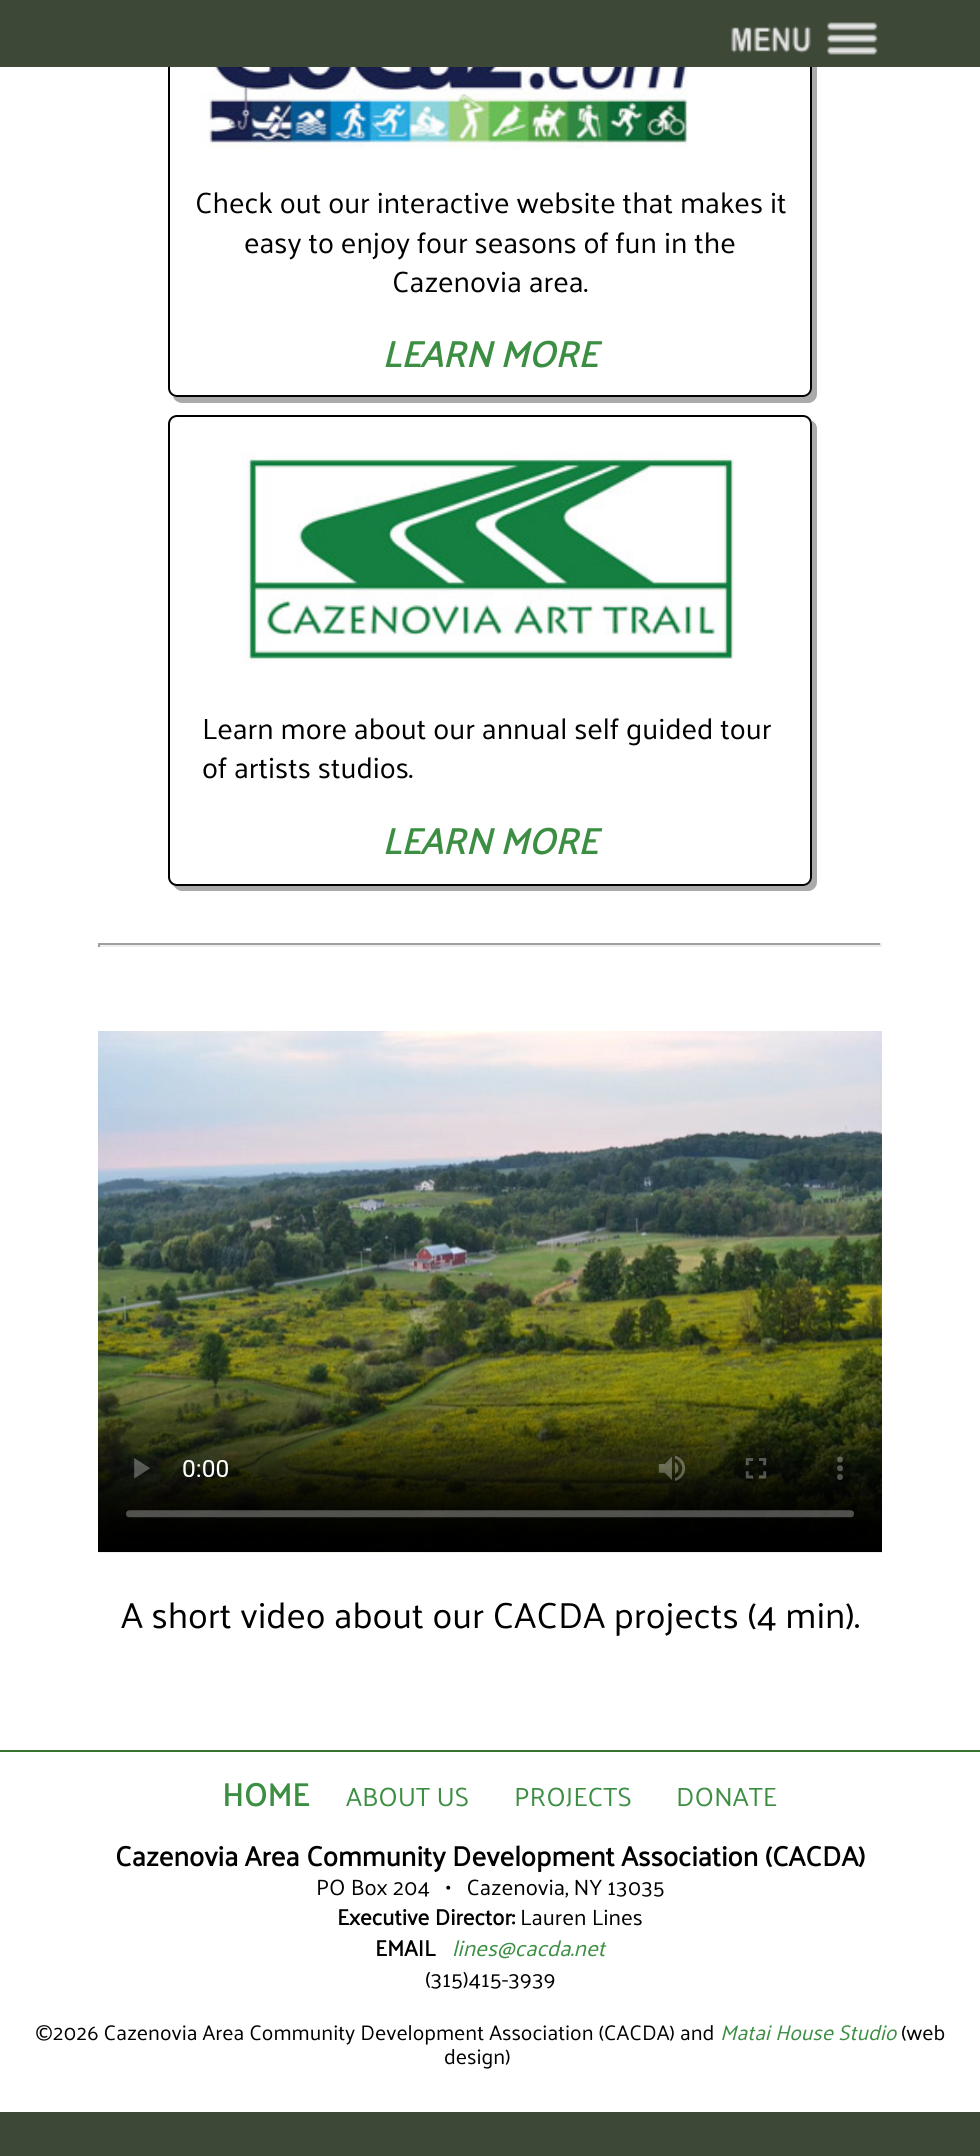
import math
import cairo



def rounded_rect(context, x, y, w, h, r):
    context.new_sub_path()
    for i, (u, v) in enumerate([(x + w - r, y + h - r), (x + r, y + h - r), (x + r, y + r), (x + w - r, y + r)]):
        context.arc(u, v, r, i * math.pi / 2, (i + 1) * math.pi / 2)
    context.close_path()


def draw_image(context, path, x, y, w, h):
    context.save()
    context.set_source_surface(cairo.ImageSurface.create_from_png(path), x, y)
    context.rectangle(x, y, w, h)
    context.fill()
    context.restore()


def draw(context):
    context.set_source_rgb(61 / 255, 72 / 255, 55 / 255)
    context.paint()
    context.set_source_rgb(1, 1, 1)
    context.rectangle(0, 67, 980, 2045)
    context.fill()
    context.set_source_rgb(170 / 255, 170 / 255, 170 / 255)
    context.new_path()
    context.move_to(173, 397)
    context.curve_to(174, 400, 178, 403, 182, 403)
    context.line_to(808, 403)
    context.curve_to(813, 403, 817, 399, 817, 394)
    context.line_to(817, -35)
    context.curve_to(817, -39, 815, -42, 811, -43)
    context.line_to(812, -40)
    context.line_to(812, 388)
    context.curve_to(812, 393, 808, 397, 803, 397)
    context.line_to(177, 397)
    context.close_path()
    context.fill()
    rounded_rect(context, 169, -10, 642, 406, 8)
    context.set_source_rgb(0, 0, 0)
    context.stroke()
    context.set_source_rgb(61 / 255, 72 / 255, 55 / 255)
    context.rectangle(168, 0, 649, 67)
    context.fill()
    draw_image(context, "images/1.png", 731, 22, 147, 33)
    draw_image(context, "images/2.png", 200, 67, 488, 82)
    context.set_source_rgb(170 / 255, 170 / 255, 170 / 255)
    context.new_path()
    context.move_to(173, 885)
    context.curve_to(175, 888, 178, 891, 182, 891)
    context.line_to(808, 891)
    context.curve_to(813, 891, 817, 887, 817, 882)
    context.line_to(817, 429)
    context.curve_to(817, 425, 815, 422, 812, 421)
    context.line_to(812, 424)
    context.line_to(812, 877)
    context.curve_to(812, 882, 808, 886, 803, 886)
    context.line_to(177, 886)
    context.close_path()
    context.fill()
    rounded_rect(context, 169, 416, 642, 469, 8)
    context.set_source_rgb(0, 0, 0)
    context.stroke()
    draw_image(context, "images/3.png", 241, 453, 493, 211)
    context.set_source_rgb(159 / 255, 159 / 255, 159 / 255)
    context.rectangle(98, 943, 784, 2)
    context.fill()
    context.set_source_rgb(238 / 255, 238 / 255, 238 / 255)
    context.rectangle(880, 943, 2, 4)
    context.fill()
    context.rectangle(98, 945, 784, 2)
    context.fill()
    context.set_source_rgb(159 / 255, 159 / 255, 159 / 255)
    context.rectangle(98, 943, 2, 4)
    context.fill()
    draw_image(context, "images/4.png", 98, 1031, 784, 522)
    context.set_source_rgb(56 / 255, 112 / 255, 46 / 255)
    context.rectangle(0, 1750, 980, 2)
    context.fill()
    context.select_font_face("Palanquin")
    context.set_font_size(29.4)
    context.set_source_rgb(0, 0, 0)
    context.move_to(195, 213)
    context.show_text("Check out our interactive website that makes it")
    context.move_to(244, 253)
    context.show_text("easy to enjoy four seasons of fun in the")
    context.move_to(392, 292)
    context.show_text("Cazenovia area.")
    context.select_font_face("Palanquin", cairo.FontSlant.ITALIC, cairo.FontWeight.BOLD)
    context.set_font_size(36.4)
    context.set_source_rgb(59 / 255, 142 / 255, 66 / 255)
    context.move_to(382, 367)
    context.show_text("LEARN MORE")
    context.select_font_face("Palanquin")
    context.set_font_size(29.4)
    context.set_source_rgb(0, 0, 0)
    context.move_to(202, 739)
    context.show_text("Learn more about our annual self guided tour")
    context.move_to(202, 778)
    context.show_text("of artists studios.")
    context.select_font_face("Palanquin", cairo.FontSlant.ITALIC, cairo.FontWeight.BOLD)
    context.set_font_size(36.4)
    context.set_source_rgb(59 / 255, 142 / 255, 66 / 255)
    context.move_to(382, 854)
    context.show_text("LEARN MORE")
    context.select_font_face("Palanquin")
    context.set_source_rgb(0, 0, 0)
    context.move_to(121, 1628)
    context.show_text("A short video about our CACDA projects (4 min).")
    context.select_font_face("Palanquin", cairo.FontSlant.NORMAL, cairo.FontWeight.BOLD)
    context.set_font_size(32)
    context.set_source_rgb(59 / 255, 142 / 255, 66 / 255)
    context.move_to(222, 1806)
    context.show_text("HOME")
    context.select_font_face("Palanquin")
    context.set_font_size(26.5)
    context.move_to(346, 1806)
    context.show_text("ABOUT US")
    context.move_to(514, 1806)
    context.show_text("PROJECTS")
    context.move_to(676, 1806)
    context.show_text("DONATE")
    context.select_font_face("Palanquin", cairo.FontSlant.NORMAL, cairo.FontWeight.BOLD)
    context.set_font_size(27.9)
    context.set_source_rgb(0, 0, 0)
    context.move_to(115, 1866)
    context.show_text("Cazenovia Area Community Development Association (CACDA)")
    context.select_font_face("Palanquin")
    context.set_font_size(22.3)
    context.move_to(316, 1895)
    context.show_text("PO Box 204   •   Cazenovia, NY 13035")
    context.select_font_face("Palanquin", cairo.FontSlant.NORMAL, cairo.FontWeight.BOLD)
    context.move_to(337, 1925)
    context.show_text("Executive Director:")
    context.select_font_face("Palanquin")
    context.move_to(520, 1925)
    context.show_text("Lauren Lines")
    context.select_font_face("Palanquin", cairo.FontSlant.NORMAL, cairo.FontWeight.BOLD)
    context.move_to(375, 1956)
    context.show_text("EMAIL")
    context.select_font_face("Palanquin", cairo.FontSlant.ITALIC)
    context.set_source_rgb(59 / 255, 142 / 255, 66 / 255)
    context.move_to(452, 1956)
    context.show_text("lines@cacda.net")
    context.select_font_face("Palanquin")
    context.set_source_rgb(0, 0, 0)
    context.move_to(425, 1987)
    context.show_text("(315)415-3939")
    context.set_font_size(21.25)
    context.move_to(35, 2040)
    context.show_text("©2026 Cazenovia Area Community Development Association (CACDA) and")
    context.select_font_face("Palanquin", cairo.FontSlant.ITALIC)
    context.set_source_rgb(59 / 255, 142 / 255, 66 / 255)
    context.move_to(720, 2040)
    context.show_text("Matai House Studio")
    context.select_font_face("Palanquin")
    context.set_source_rgb(0, 0, 0)
    context.move_to(901, 2040)
    context.show_text("(web")
    context.move_to(444, 2064)
    context.show_text("design)")


surface = cairo.ImageSurface(cairo.Format.RGB24, 980, 2156)
context = cairo.Context(surface)
options = cairo.FontOptions()
options.set_hint_metrics(cairo.HintMetrics.OFF)
options.set_hint_style(cairo.HintStyle.NONE)
context.set_font_options(options)
context.set_miter_limit(4)
draw(context)
surface.write_to_png("out.png")
